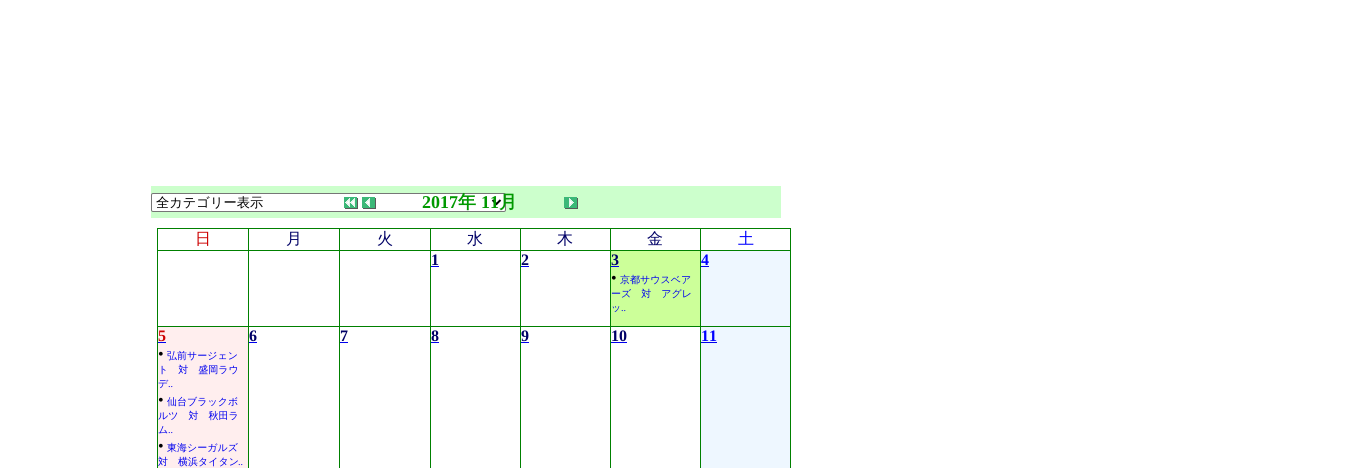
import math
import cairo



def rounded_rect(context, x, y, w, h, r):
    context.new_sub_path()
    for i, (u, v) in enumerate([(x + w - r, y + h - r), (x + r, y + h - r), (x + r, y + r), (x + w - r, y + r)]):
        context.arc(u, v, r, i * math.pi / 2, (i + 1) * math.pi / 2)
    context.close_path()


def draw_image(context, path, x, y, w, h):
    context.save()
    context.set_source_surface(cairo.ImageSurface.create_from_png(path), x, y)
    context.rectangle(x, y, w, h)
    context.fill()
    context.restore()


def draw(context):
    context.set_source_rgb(1, 1, 1)
    context.paint()
    context.set_source_rgb(204 / 255, 1, 204 / 255)
    context.rectangle(151, 186, 630, 32)
    context.fill()
    context.set_source_rgb(1, 1, 1)
    rounded_rect(context, 151.5, 193.5, 354, 18, 1.5)
    context.fill_preserve()
    context.set_source_rgb(118 / 255, 118 / 255, 118 / 255)
    context.set_line_width(1)
    context.stroke()
    context.new_path()
    context.move_to(492.5, 200)
    context.line_to(496.5, 204)
    context.line_to(500.5, 200)
    context.set_source_rgb(0, 0, 0)
    context.set_line_width(2)
    context.stroke()
    draw_image(context, "images/1.png", 344, 197, 14, 12)
    draw_image(context, "images/2.png", 362, 197, 14, 12)
    draw_image(context, "images/3.png", 564, 197, 14, 12)
    context.set_source_rgb(0, 128 / 255, 0)
    context.rectangle(700, 228, 91, 1)
    context.fill()
    context.rectangle(700, 250, 91, 1)
    context.fill()
    context.rectangle(700, 326, 91, 1)
    context.fill()
    context.rectangle(700, 326, 1, 142)
    context.fill()
    context.rectangle(610, 326, 91, 1)
    context.fill()
    context.rectangle(700, 250, 1, 77)
    context.fill()
    context.rectangle(610, 250, 91, 1)
    context.fill()
    context.rectangle(700, 228, 1, 23)
    context.fill()
    context.rectangle(610, 228, 91, 1)
    context.fill()
    context.rectangle(610, 326, 1, 142)
    context.fill()
    context.rectangle(520, 326, 91, 1)
    context.fill()
    context.rectangle(610, 250, 1, 77)
    context.fill()
    context.rectangle(520, 250, 91, 1)
    context.fill()
    context.rectangle(610, 228, 1, 23)
    context.fill()
    context.rectangle(520, 228, 91, 1)
    context.fill()
    context.rectangle(520, 326, 1, 142)
    context.fill()
    context.rectangle(430, 326, 91, 1)
    context.fill()
    context.rectangle(520, 250, 1, 77)
    context.fill()
    context.rectangle(430, 250, 91, 1)
    context.fill()
    context.rectangle(520, 228, 1, 23)
    context.fill()
    context.rectangle(430, 228, 91, 1)
    context.fill()
    context.rectangle(430, 326, 1, 142)
    context.fill()
    context.rectangle(339, 326, 92, 1)
    context.fill()
    context.rectangle(430, 250, 1, 77)
    context.fill()
    context.rectangle(339, 250, 92, 1)
    context.fill()
    context.rectangle(430, 228, 1, 23)
    context.fill()
    context.rectangle(339, 228, 92, 1)
    context.fill()
    context.rectangle(339, 326, 1, 142)
    context.fill()
    context.rectangle(248, 326, 92, 1)
    context.fill()
    context.rectangle(339, 250, 1, 77)
    context.fill()
    context.rectangle(248, 250, 92, 1)
    context.fill()
    context.rectangle(339, 228, 1, 23)
    context.fill()
    context.rectangle(248, 228, 92, 1)
    context.fill()
    context.rectangle(248, 326, 1, 142)
    context.fill()
    context.rectangle(157, 326, 92, 1)
    context.fill()
    context.rectangle(248, 250, 1, 77)
    context.fill()
    context.rectangle(157, 250, 92, 1)
    context.fill()
    context.rectangle(248, 228, 1, 23)
    context.fill()
    context.rectangle(157, 228, 92, 1)
    context.fill()
    context.rectangle(157, 326, 1, 142)
    context.fill()
    context.rectangle(157, 250, 1, 77)
    context.fill()
    context.rectangle(157, 228, 1, 23)
    context.fill()
    context.rectangle(790, 326, 1, 142)
    context.fill()
    context.rectangle(790, 250, 1, 77)
    context.fill()
    context.rectangle(790, 228, 1, 23)
    context.fill()
    context.set_source_rgb(0, 0, 238 / 255)
    context.rectangle(431, 266, 8, 1)
    context.fill()
    context.rectangle(521, 266, 8, 1)
    context.fill()
    context.set_source_rgb(204 / 255, 1, 153 / 255)
    context.rectangle(611, 251, 89, 75)
    context.fill()
    context.set_source_rgb(0, 0, 238 / 255)
    context.rectangle(611, 266, 8, 1)
    context.fill()
    context.set_source_rgb(238 / 255, 247 / 255, 1)
    context.rectangle(701, 251, 89, 75)
    context.fill()
    context.set_source_rgb(0, 0, 238 / 255)
    context.rectangle(701, 266, 8, 1)
    context.fill()
    context.set_source_rgb(1, 238 / 255, 238 / 255)
    context.rectangle(158, 327, 90, 141)
    context.fill()
    context.set_source_rgb(0, 0, 238 / 255)
    context.rectangle(158, 342, 8, 1)
    context.fill()
    context.rectangle(249, 342, 8, 1)
    context.fill()
    context.rectangle(340, 342, 8, 1)
    context.fill()
    context.rectangle(431, 342, 8, 1)
    context.fill()
    context.rectangle(521, 342, 8, 1)
    context.fill()
    context.rectangle(611, 342, 16, 1)
    context.fill()
    context.set_source_rgb(238 / 255, 247 / 255, 1)
    context.rectangle(701, 327, 89, 141)
    context.fill()
    context.set_source_rgb(0, 0, 238 / 255)
    context.rectangle(701, 342, 16, 1)
    context.fill()
    context.select_font_face("WenQuanYi Zen Hei Medium")
    context.set_font_size(13.25)
    context.set_source_rgb(0, 0, 0)
    context.move_to(156, 207)
    context.show_text("全カテゴリー表示")
    context.select_font_face("Liberation Serif", cairo.FontSlant.NORMAL, cairo.FontWeight.BOLD)
    context.set_font_size(18)
    context.set_source_rgb(0, 153 / 255, 0)
    context.move_to(422, 208)
    context.show_text("2017")
    context.select_font_face("WenQuanYi Zen Hei", cairo.FontSlant.NORMAL, cairo.FontWeight.BOLD)
    context.move_to(458, 208)
    context.show_text("年")
    context.select_font_face("Liberation Serif", cairo.FontSlant.NORMAL, cairo.FontWeight.BOLD)
    context.move_to(481, 208)
    context.show_text("11")
    context.select_font_face("WenQuanYi Zen Hei", cairo.FontSlant.NORMAL, cairo.FontWeight.BOLD)
    context.move_to(499, 208)
    context.show_text("月")
    context.select_font_face("WenQuanYi Zen Hei Medium")
    context.set_font_size(16)
    context.set_source_rgb(204 / 255, 0, 0)
    context.move_to(195, 244)
    context.show_text("日")
    context.set_source_rgb(0, 0, 102 / 255)
    context.move_to(286, 244)
    context.show_text("月")
    context.move_to(377, 244)
    context.show_text("火")
    context.move_to(467, 244)
    context.show_text("水")
    context.move_to(557, 244)
    context.show_text("木")
    context.move_to(647, 244)
    context.show_text("金")
    context.set_source_rgb(0, 0, 1)
    context.move_to(738, 244)
    context.show_text("土")
    context.select_font_face("Liberation Serif", cairo.FontSlant.NORMAL, cairo.FontWeight.BOLD)
    context.set_source_rgb(0, 0, 102 / 255)
    context.move_to(431, 265)
    context.show_text("1")
    context.move_to(521, 265)
    context.show_text("2")
    context.move_to(611, 265)
    context.show_text("3")
    context.select_font_face("Liberation Serif")
    context.set_source_rgb(0, 0, 0)
    context.move_to(611, 283)
    context.show_text("•")
    context.select_font_face("WenQuanYi Zen Hei Medium")
    context.set_font_size(10)
    context.set_source_rgb(0, 0, 238 / 255)
    context.move_to(620, 283)
    context.show_text("京都サウスベア")
    context.move_to(611, 297)
    context.show_text("ーズ　対　アグレ")
    context.move_to(611, 311)
    context.show_text("ッ")
    context.select_font_face("Liberation Serif")
    context.move_to(621, 311)
    context.show_text("..")
    context.select_font_face("Liberation Serif", cairo.FontSlant.NORMAL, cairo.FontWeight.BOLD)
    context.set_font_size(16)
    context.set_source_rgb(0, 0, 1)
    context.move_to(701, 265)
    context.show_text("4")
    context.set_source_rgb(204 / 255, 0, 0)
    context.move_to(158, 341)
    context.show_text("5")
    context.select_font_face("Liberation Serif")
    context.set_source_rgb(0, 0, 0)
    context.move_to(158, 359)
    context.show_text("•")
    context.select_font_face("WenQuanYi Zen Hei Medium")
    context.set_font_size(10)
    context.set_source_rgb(0, 0, 238 / 255)
    context.move_to(167, 359)
    context.show_text("弘前サージェン")
    context.move_to(158, 373)
    context.show_text("ト　対　盛岡ラウ")
    context.move_to(158, 387)
    context.show_text("デ")
    context.select_font_face("Liberation Serif")
    context.move_to(168, 387)
    context.show_text("..")
    context.set_font_size(16)
    context.set_source_rgb(0, 0, 0)
    context.move_to(158, 405)
    context.show_text("•")
    context.select_font_face("WenQuanYi Zen Hei Medium")
    context.set_font_size(10)
    context.set_source_rgb(0, 0, 238 / 255)
    context.move_to(167, 405)
    context.show_text("仙台ブラックボ")
    context.move_to(158, 419)
    context.show_text("ルツ　対　秋田ラ")
    context.move_to(158, 433)
    context.show_text("ム")
    context.select_font_face("Liberation Serif")
    context.move_to(168, 433)
    context.show_text("..")
    context.set_font_size(16)
    context.set_source_rgb(0, 0, 0)
    context.move_to(158, 451)
    context.show_text("•")
    context.select_font_face("WenQuanYi Zen Hei Medium")
    context.set_font_size(10)
    context.set_source_rgb(0, 0, 238 / 255)
    context.move_to(167, 451)
    context.show_text("東海シーガルズ")
    context.move_to(158, 465)
    context.show_text("対　横浜タイタン")
    context.select_font_face("Liberation Serif")
    context.move_to(238, 465)
    context.show_text("..")
    context.select_font_face("Liberation Serif", cairo.FontSlant.NORMAL, cairo.FontWeight.BOLD)
    context.set_font_size(16)
    context.set_source_rgb(0, 0, 102 / 255)
    context.move_to(249, 341)
    context.show_text("6")
    context.move_to(340, 341)
    context.show_text("7")
    context.move_to(431, 341)
    context.show_text("8")
    context.move_to(521, 341)
    context.show_text("9")
    context.move_to(611, 341)
    context.show_text("10")
    context.set_source_rgb(0, 0, 1)
    context.move_to(701, 341)
    context.show_text("11")


surface = cairo.ImageSurface(cairo.Format.RGB24, 1358, 468)
context = cairo.Context(surface)
options = cairo.FontOptions()
options.set_hint_metrics(cairo.HintMetrics.OFF)
options.set_hint_style(cairo.HintStyle.NONE)
context.set_font_options(options)
context.set_miter_limit(4)
draw(context)
surface.write_to_png("out.png")
